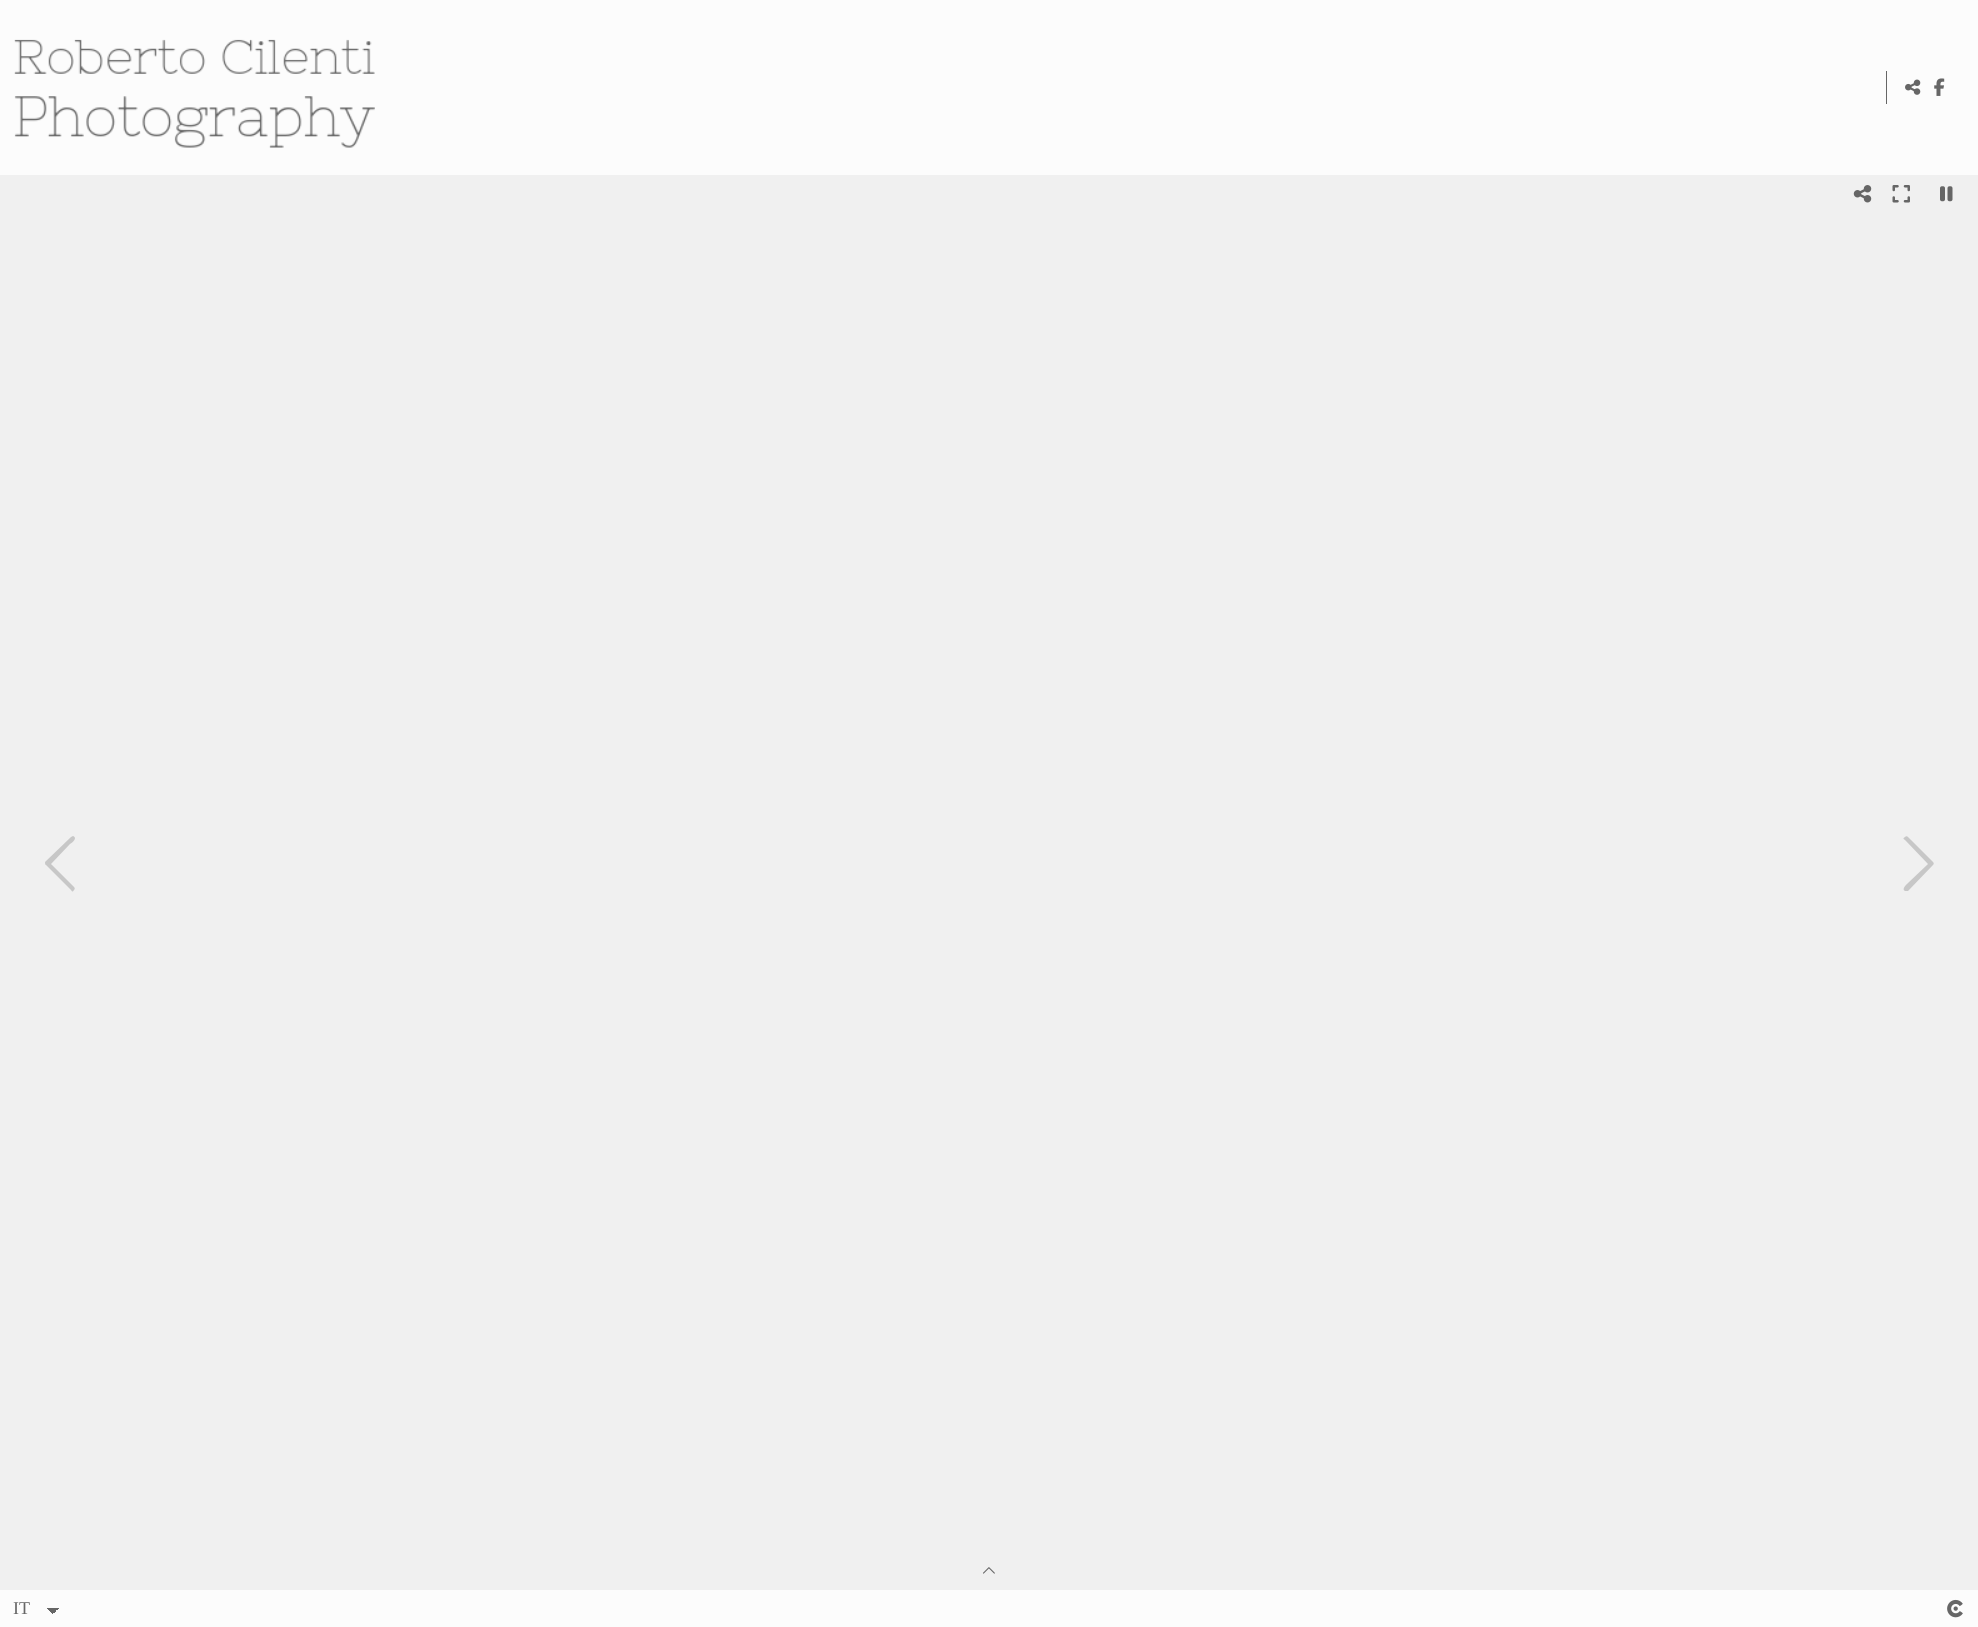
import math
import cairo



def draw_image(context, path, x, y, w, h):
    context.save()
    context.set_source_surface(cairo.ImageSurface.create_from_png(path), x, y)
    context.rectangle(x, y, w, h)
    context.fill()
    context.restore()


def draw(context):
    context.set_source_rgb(240 / 255, 240 / 255, 240 / 255)
    context.paint()
    context.set_source_rgb(252 / 255, 252 / 255, 252 / 255)
    context.rectangle(0, 0, 1978, 175)
    context.fill()
    draw_image(context, "images/1.png", 14, 39, 361, 109)
    context.set_source_rgb(102 / 255, 102 / 255, 102 / 255)
    context.rectangle(1886, 71, 1, 33)
    context.fill()
    draw_image(context, "images/2.png", 1905, 79, 16, 16)
    draw_image(context, "images/3.png", 1934, 78, 11, 18)
    draw_image(context, "images/4.png", 1853, 185, 19, 18)
    draw_image(context, "images/5.png", 1892, 185, 18, 18)
    draw_image(context, "images/6.png", 1940, 186, 13, 16)
    context.set_source_rgb(199 / 255, 199 / 255, 199 / 255)
    context.new_path()
    context.move_to(46, 865)
    context.curve_to(45, 865, 45, 863, 45, 862)
    context.line_to(71, 837)
    context.line_to(73, 836)
    context.curve_to(78, 838, 72, 843, 70, 844)
    context.line_to(51, 864)
    context.line_to(74, 887)
    context.curve_to(75, 888, 75, 889, 74, 890)
    context.curve_to(73, 892, 72, 892, 71, 890)
    context.close_path()
    context.fill()
    context.new_path()
    context.move_to(1933, 862)
    context.curve_to(1934, 863, 1934, 864, 1933, 865)
    context.line_to(1908, 891)
    context.line_to(1905, 891)
    context.curve_to(1901, 889, 1907, 884, 1908, 883)
    context.line_to(1928, 864)
    context.line_to(1905, 840)
    context.curve_to(1903, 839, 1903, 838, 1905, 837)
    context.curve_to(1906, 836, 1907, 836, 1908, 837)
    context.close_path()
    context.fill()
    draw_image(context, "images/7.png", 983, 1567, 12, 7)
    context.set_source_rgb(252 / 255, 252 / 255, 252 / 255)
    context.rectangle(0, 1590, 1978, 37)
    context.fill()
    gradient = cairo.LinearGradient(53, 1608, 59, 1614)
    gradient.add_color_stop_rgba(0.5, 102 / 255, 102 / 255, 102 / 255, 1)
    gradient.add_color_stop_rgba(0.5, 252 / 255, 252 / 255, 252 / 255, 1)
    context.set_source(gradient)
    context.rectangle(53, 1608, 6, 5)
    context.fill()
    gradient = cairo.LinearGradient(46, 1614, 53, 1608)
    gradient.add_color_stop_rgba(0.5, 252 / 255, 252 / 255, 252 / 255, 1)
    gradient.add_color_stop_rgba(0.5, 102 / 255, 102 / 255, 102 / 255, 1)
    context.set_source(gradient)
    context.rectangle(46, 1608, 7, 6)
    context.fill()
    draw_image(context, "images/8.png", 1947, 1599, 16, 19)
    context.select_font_face("Liberation Serif")
    context.set_font_size(18)
    context.set_source_rgb(102 / 255, 102 / 255, 102 / 255)
    context.move_to(13, 1614)
    context.show_text("IT")


surface = cairo.ImageSurface(cairo.Format.RGB24, 1978, 1627)
context = cairo.Context(surface)
options = cairo.FontOptions()
options.set_hint_metrics(cairo.HintMetrics.OFF)
options.set_hint_style(cairo.HintStyle.NONE)
context.set_font_options(options)
context.set_miter_limit(4)
draw(context)
surface.write_to_png("out.png")
